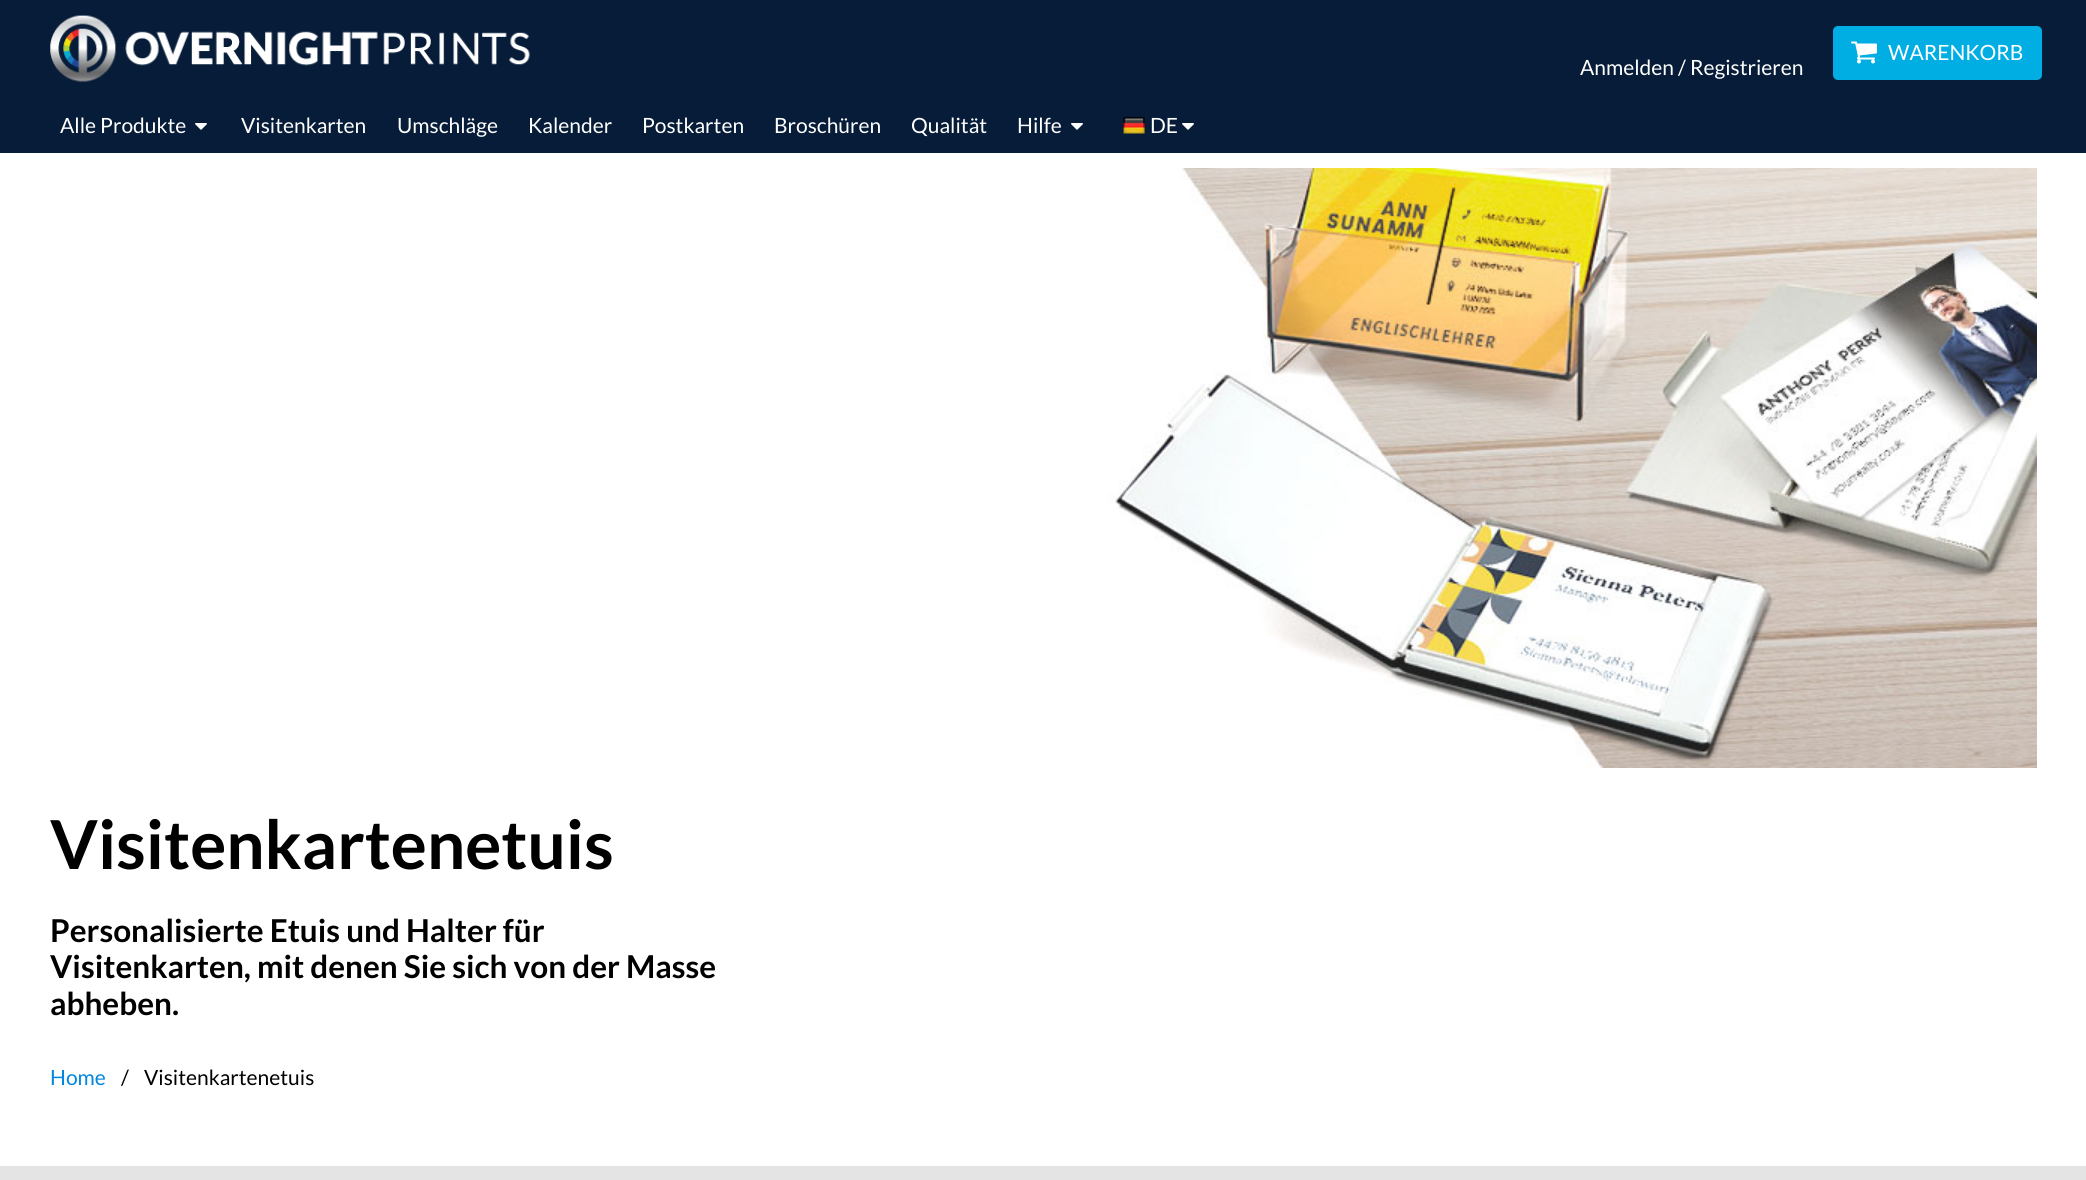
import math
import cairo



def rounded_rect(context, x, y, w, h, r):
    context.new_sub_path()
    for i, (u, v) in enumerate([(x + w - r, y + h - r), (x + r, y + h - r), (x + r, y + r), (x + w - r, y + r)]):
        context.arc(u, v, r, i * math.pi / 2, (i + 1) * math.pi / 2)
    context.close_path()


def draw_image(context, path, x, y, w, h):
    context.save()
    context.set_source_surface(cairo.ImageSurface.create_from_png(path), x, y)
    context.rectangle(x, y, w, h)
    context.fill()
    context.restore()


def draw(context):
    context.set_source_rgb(1, 1, 1)
    context.paint()
    context.set_source_rgb(6 / 255, 28 / 255, 56 / 255)
    context.rectangle(0, 0, 2086, 153)
    context.fill()
    context.set_source_rgb(1 / 255, 174 / 255, 227 / 255)
    rounded_rect(context, 1833, 26, 209, 54, 5)
    context.fill()
    draw_image(context, "images/1.png", 1851, 41, 26, 23)
    draw_image(context, "images/2.png", 50, 15, 480, 67)
    draw_image(context, "images/3.png", 195, 123, 12, 7)
    draw_image(context, "images/3.png", 1071, 123, 12, 7)
    draw_image(context, "images/4.png", 1123, 116, 22, 19)
    draw_image(context, "images/3.png", 1182, 123, 12, 7)
    draw_image(context, "images/5.png", 51, 168, 1986, 600)
    context.set_source_rgb(228 / 255, 228 / 255, 228 / 255)
    context.rectangle(0, 1166, 2086, 14)
    context.fill()
    context.select_font_face("Lato")
    context.set_font_size(21)
    context.set_source_rgb(1, 1, 1)
    context.move_to(1888, 60)
    context.show_text("WARENKORB")
    context.move_to(1580, 75)
    context.show_text("Anmelden / Registrieren")
    context.move_to(60, 133)
    context.show_text("Alle Produkte")
    context.move_to(241, 133)
    context.show_text("Visitenkarten")
    context.move_to(397, 133)
    context.show_text("Umschläge")
    context.move_to(528, 133)
    context.show_text("Kalender")
    context.move_to(642, 133)
    context.show_text("Postkarten")
    context.move_to(774, 133)
    context.show_text("Broschüren")
    context.move_to(911, 133)
    context.show_text("Qualität")
    context.move_to(1017, 133)
    context.show_text("Hilfe")
    context.move_to(1150, 133)
    context.show_text("DE")
    context.select_font_face("Lato", cairo.FontSlant.NORMAL, cairo.FontWeight.BOLD)
    context.set_font_size(67.5)
    context.set_source_rgb(0, 0, 0)
    context.move_to(50, 869)
    context.show_text("Visitenkartenetuis")
    context.set_font_size(31.5)
    context.move_to(50, 942)
    context.show_text("Personalisierte Etuis und Halter für")
    context.move_to(50, 978)
    context.show_text("Visitenkarten, mit denen Sie sich von der Masse")
    context.move_to(50, 1015)
    context.show_text("abheben.")
    context.select_font_face("Lato")
    context.set_font_size(21)
    context.set_source_rgb(3 / 255, 134 / 255, 221 / 255)
    context.move_to(50, 1085)
    context.show_text("Home")
    context.set_source_rgb(0, 0, 0)
    context.move_to(121, 1085)
    context.show_text("/")
    context.move_to(144, 1085)
    context.show_text("Visitenkartenetuis")


surface = cairo.ImageSurface(cairo.Format.RGB24, 2086, 1180)
context = cairo.Context(surface)
options = cairo.FontOptions()
options.set_hint_metrics(cairo.HintMetrics.OFF)
options.set_hint_style(cairo.HintStyle.NONE)
context.set_font_options(options)
context.set_miter_limit(4)
draw(context)
surface.write_to_png("out.png")
